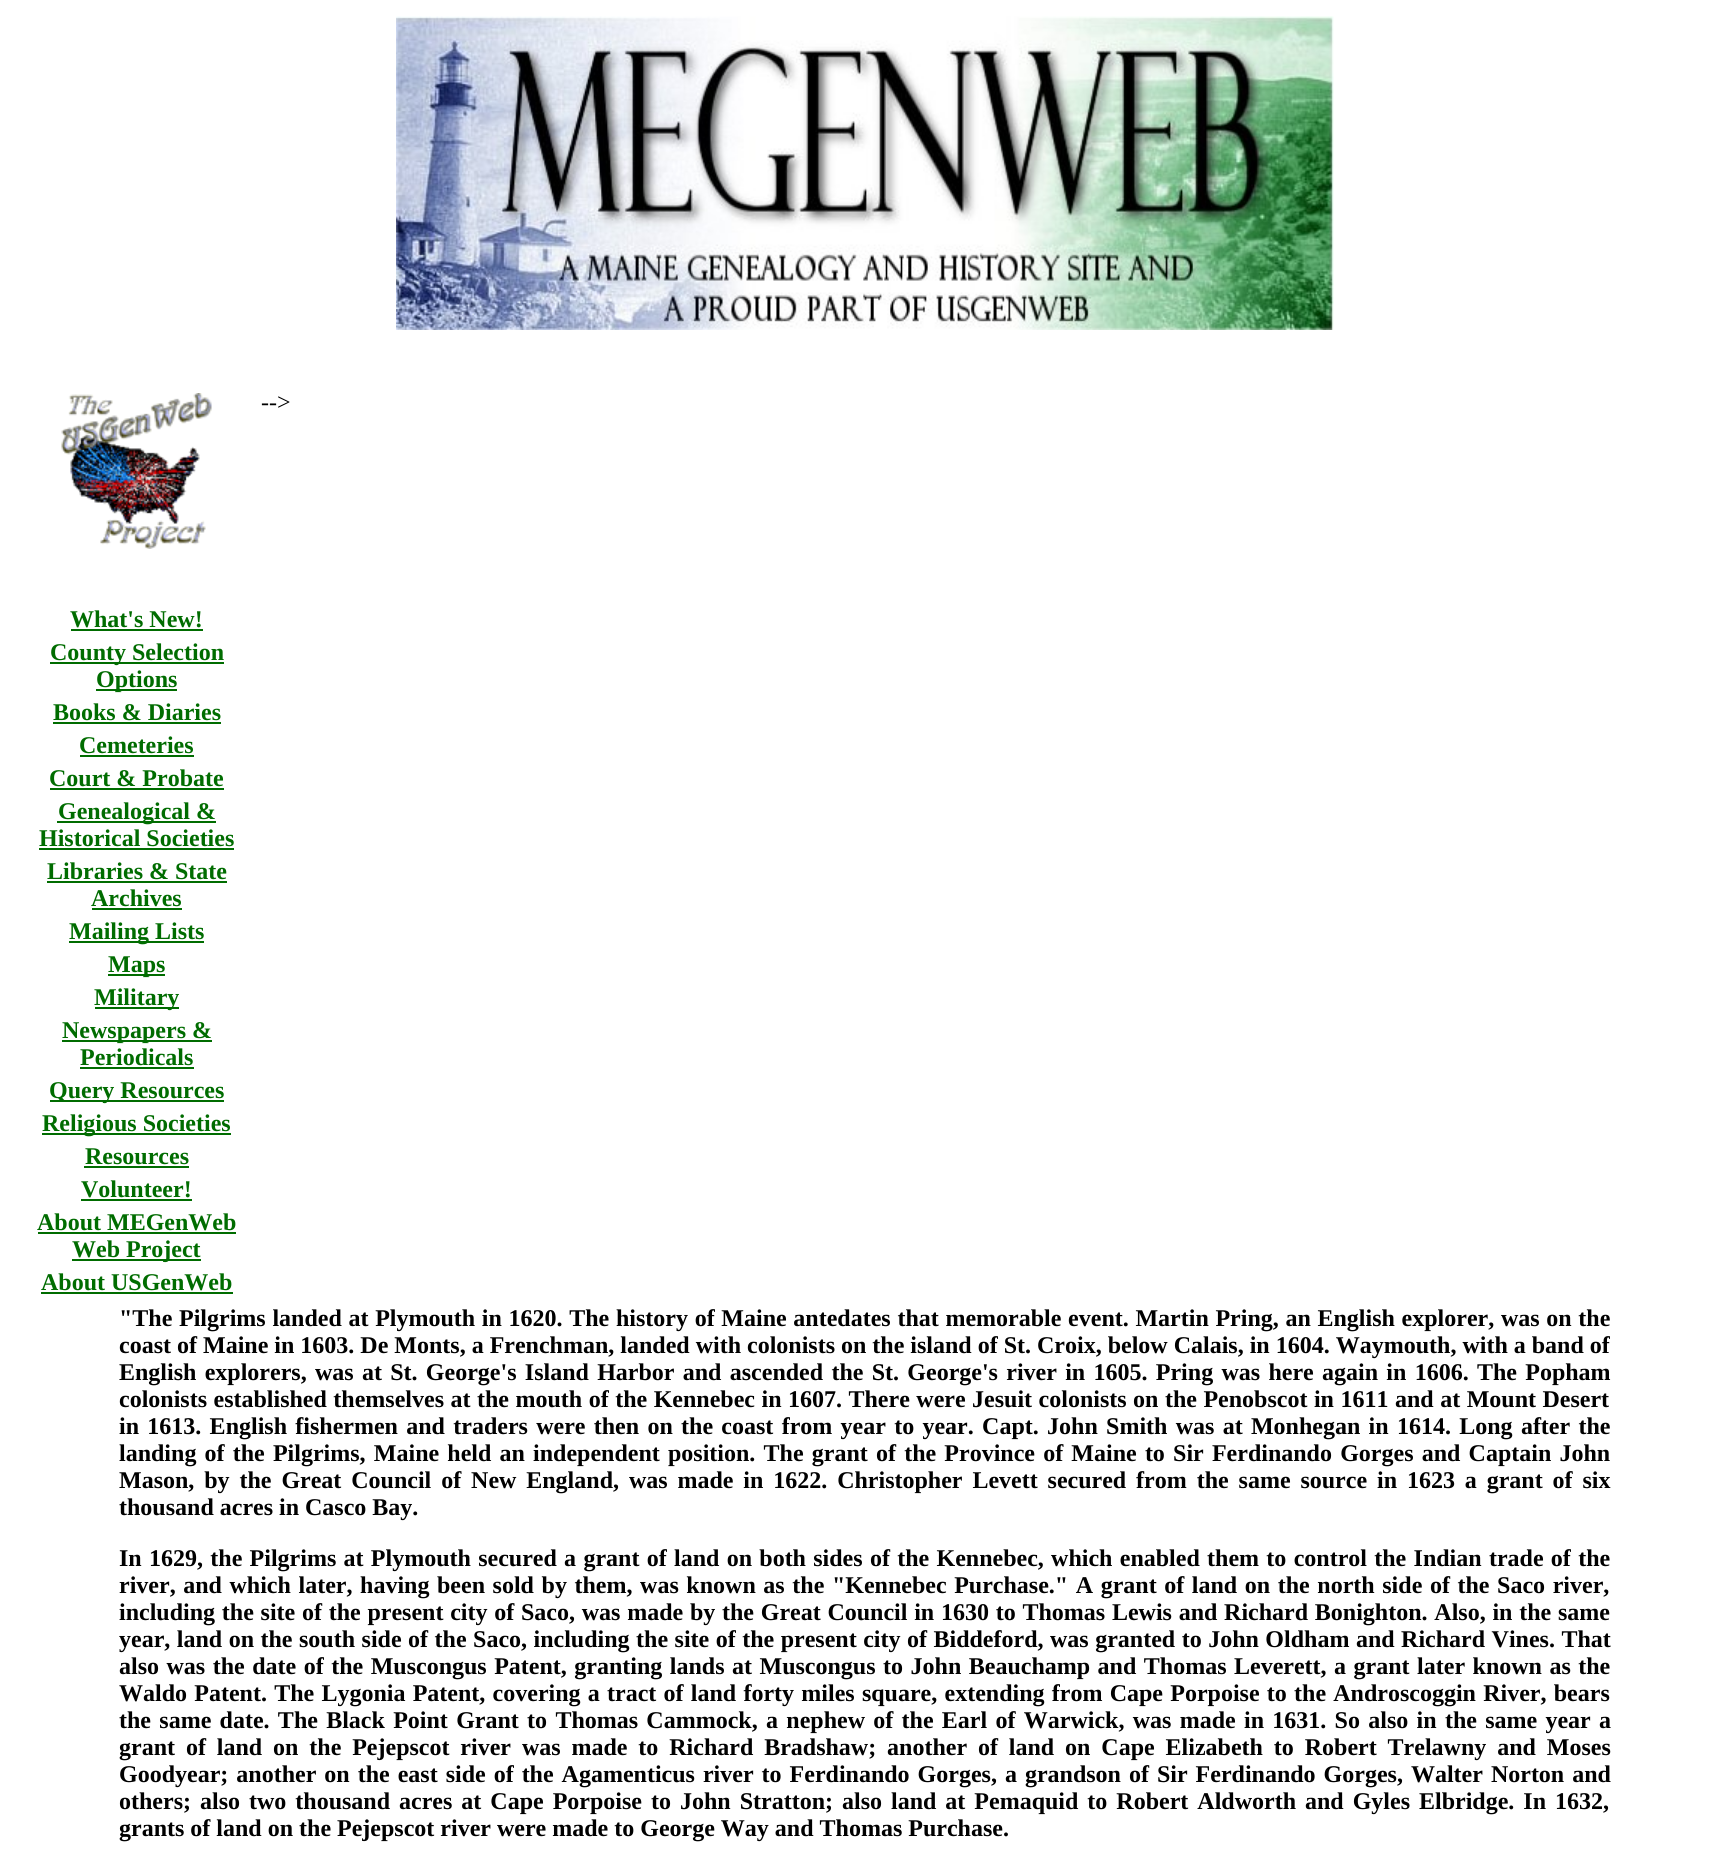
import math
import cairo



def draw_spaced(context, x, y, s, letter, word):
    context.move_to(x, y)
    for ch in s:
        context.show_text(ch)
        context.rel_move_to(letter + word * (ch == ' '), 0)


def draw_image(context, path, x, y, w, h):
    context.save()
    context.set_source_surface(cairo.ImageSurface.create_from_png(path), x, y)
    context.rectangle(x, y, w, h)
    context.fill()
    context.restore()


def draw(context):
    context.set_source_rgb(1, 1, 1)
    context.paint()
    draw_image(context, "images/1.png", 396, 16, 938, 314)
    draw_image(context, "images/2.png", 61, 393, 151, 156)
    context.set_source_rgb(0, 108 / 255, 0)
    context.rectangle(71, 629, 132, 2)
    context.fill()
    context.rectangle(50, 662, 174, 2)
    context.fill()
    context.rectangle(96, 689, 81, 2)
    context.fill()
    context.rectangle(53, 722, 168, 2)
    context.fill()
    context.rectangle(80, 755, 114, 2)
    context.fill()
    context.rectangle(50, 788, 174, 2)
    context.fill()
    context.rectangle(57, 821, 159, 2)
    context.fill()
    context.rectangle(39, 848, 195, 2)
    context.fill()
    context.rectangle(47, 881, 180, 2)
    context.fill()
    context.rectangle(92, 908, 90, 2)
    context.fill()
    context.rectangle(69, 941, 135, 2)
    context.fill()
    context.rectangle(108, 974, 57, 2)
    context.fill()
    context.rectangle(95, 1007, 84, 2)
    context.fill()
    context.rectangle(62, 1040, 150, 2)
    context.fill()
    context.rectangle(80, 1067, 114, 2)
    context.fill()
    context.rectangle(50, 1100, 174, 2)
    context.fill()
    context.rectangle(42, 1133, 189, 2)
    context.fill()
    context.rectangle(84, 1166, 105, 2)
    context.fill()
    context.rectangle(81, 1199, 111, 2)
    context.fill()
    context.rectangle(38, 1232, 198, 2)
    context.fill()
    context.rectangle(72, 1259, 129, 2)
    context.fill()
    context.rectangle(41, 1292, 192, 2)
    context.fill()
    context.select_font_face("Liberation Serif")
    context.set_font_size(24)
    context.set_source_rgb(0, 0, 0)
    context.move_to(261, 410)
    context.show_text("-->")
    context.select_font_face("Liberation Serif", cairo.FontSlant.NORMAL, cairo.FontWeight.BOLD)
    context.set_source_rgb(0, 108 / 255, 0)
    context.move_to(70, 627)
    context.show_text("What's New!")
    context.move_to(50, 660)
    context.show_text("County Selection")
    context.move_to(96, 687)
    context.show_text("Options")
    context.move_to(53, 720)
    context.show_text("Books & Diaries")
    context.move_to(79, 753)
    context.show_text("Cemeteries")
    context.move_to(49, 786)
    context.show_text("Court & Probate")
    context.move_to(58, 819)
    context.show_text("Genealogical &")
    context.move_to(39, 846)
    context.show_text("Historical Societies")
    context.move_to(47, 879)
    context.show_text("Libraries & State")
    context.move_to(91, 906)
    context.show_text("Archives")
    context.move_to(69, 939)
    context.show_text("Mailing Lists")
    context.move_to(108, 972)
    context.show_text("Maps")
    context.move_to(94, 1005)
    context.show_text("Military")
    context.move_to(62, 1038)
    context.show_text("Newspapers &")
    context.move_to(80, 1065)
    context.show_text("Periodicals")
    context.move_to(49, 1098)
    context.show_text("Query Resources")
    context.move_to(42, 1131)
    context.show_text("Religious Societies")
    context.move_to(85, 1164)
    context.show_text("Resources")
    context.move_to(81, 1197)
    context.show_text("Volunteer!")
    context.move_to(37, 1230)
    context.show_text("About MEGenWeb")
    context.move_to(72, 1257)
    context.show_text("Web Project")
    context.move_to(41, 1290)
    context.show_text("About USGenWeb")
    context.set_source_rgb(0, 0, 0)
    draw_spaced(context, 119, 1326, "\"The Pilgrims landed at Plymouth in 1620. The history of Maine antedates that memorable event. Martin Pring, an English explorer, was on the", 0, 0.7)
    context.move_to(119, 1353)
    context.show_text("coast of Maine in 1603. De Monts, a Frenchman, landed with colonists on the island of St. Croix, below Calais, in 1604. Waymouth, with a band of")
    draw_spaced(context, 119, 1380, "English explorers, was at St. George's Island Harbor and ascended the St. George's river in 1605. Pring was here again in 1606. The Popham", 0, 2.3)
    draw_spaced(context, 119, 1407, "colonists established themselves at the mouth of the Kennebec in 1607. There were Jesuit colonists on the Penobscot in 1611 and at Mount Desert", 0, 0.5)
    draw_spaced(context, 119, 1434, "in 1613. English fishermen and traders were then on the coast from year to year. Capt. John Smith was at Monhegan in 1614. Long after the", 0, 2.3)
    draw_spaced(context, 119, 1461, "landing of the Pilgrims, Maine held an independent position. The grant of the Province of Maine to Sir Ferdinando Gorges and Captain John", 0, 2.2)
    draw_spaced(context, 119, 1488, "Mason, by the Great Council of New England, was made in 1622. Christopher Levett secured from the same source in 1623 a grant of six", 0, 3.9)
    context.move_to(119, 1515)
    context.show_text("thousand acres in Casco Bay.")
    draw_spaced(context, 119, 1566, "In 1629, the Pilgrims at Plymouth secured a grant of land on both sides of the Kennebec, which enabled them to control the Indian trade of the", 0, 1.3)
    draw_spaced(context, 119, 1593, "river, and which later, having been sold by them, was known as the \"Kennebec Purchase.\" A grant of land on the north side of the Saco river,", 0, 1.6)
    draw_spaced(context, 119, 1620, "including the site of the present city of Saco, was made by the Great Council in 1630 to Thomas Lewis and Richard Bonighton. Also, in the same", 0, 0.75)
    draw_spaced(context, 119, 1647, "year, land on the south side of the Saco, including the site of the present city of Biddeford, was granted to John Oldham and Richard Vines. That", 0, 0.5)
    draw_spaced(context, 119, 1674, "also was the date of the Muscongus Patent, granting lands at Muscongus to John Beauchamp and Thomas Leverett, a grant later known as the", 0, 1.5)
    draw_spaced(context, 119, 1701, "Waldo Patent. The Lygonia Patent, covering a tract of land forty miles square, extending from Cape Porpoise to the Androscoggin River, bears", 0, 1.25)
    draw_spaced(context, 119, 1728, "the same date. The Black Point Grant to Thomas Cammock, a nephew of the Earl of Warwick, was made in 1631. So also in the same year a", 0, 2.3)
    draw_spaced(context, 119, 1755, "grant of land on the Pejepscot river was made to Richard Bradshaw; another of land on Cape Elizabeth to Robert Trelawny and Moses", 0, 4.9)
    draw_spaced(context, 119, 1782, "Goodyear; another on the east side of the Agamenticus river to Ferdinando Gorges, a grandson of Sir Ferdinando Gorges, Walter Norton and", 0, 2)
    draw_spaced(context, 119, 1809, "others; also two thousand acres at Cape Porpoise to John Stratton; also land at Pemaquid to Robert Aldworth and Gyles Elbridge. In 1632,", 0, 3)
    context.move_to(119, 1836)
    context.show_text("grants of land on the Pejepscot river were made to George Way and Thomas Purchase.")


surface = cairo.ImageSurface(cairo.Format.RGB24, 1729, 1858)
context = cairo.Context(surface)
options = cairo.FontOptions()
options.set_hint_metrics(cairo.HintMetrics.OFF)
options.set_hint_style(cairo.HintStyle.NONE)
context.set_font_options(options)
context.set_miter_limit(4)
draw(context)
surface.write_to_png("out.png")
